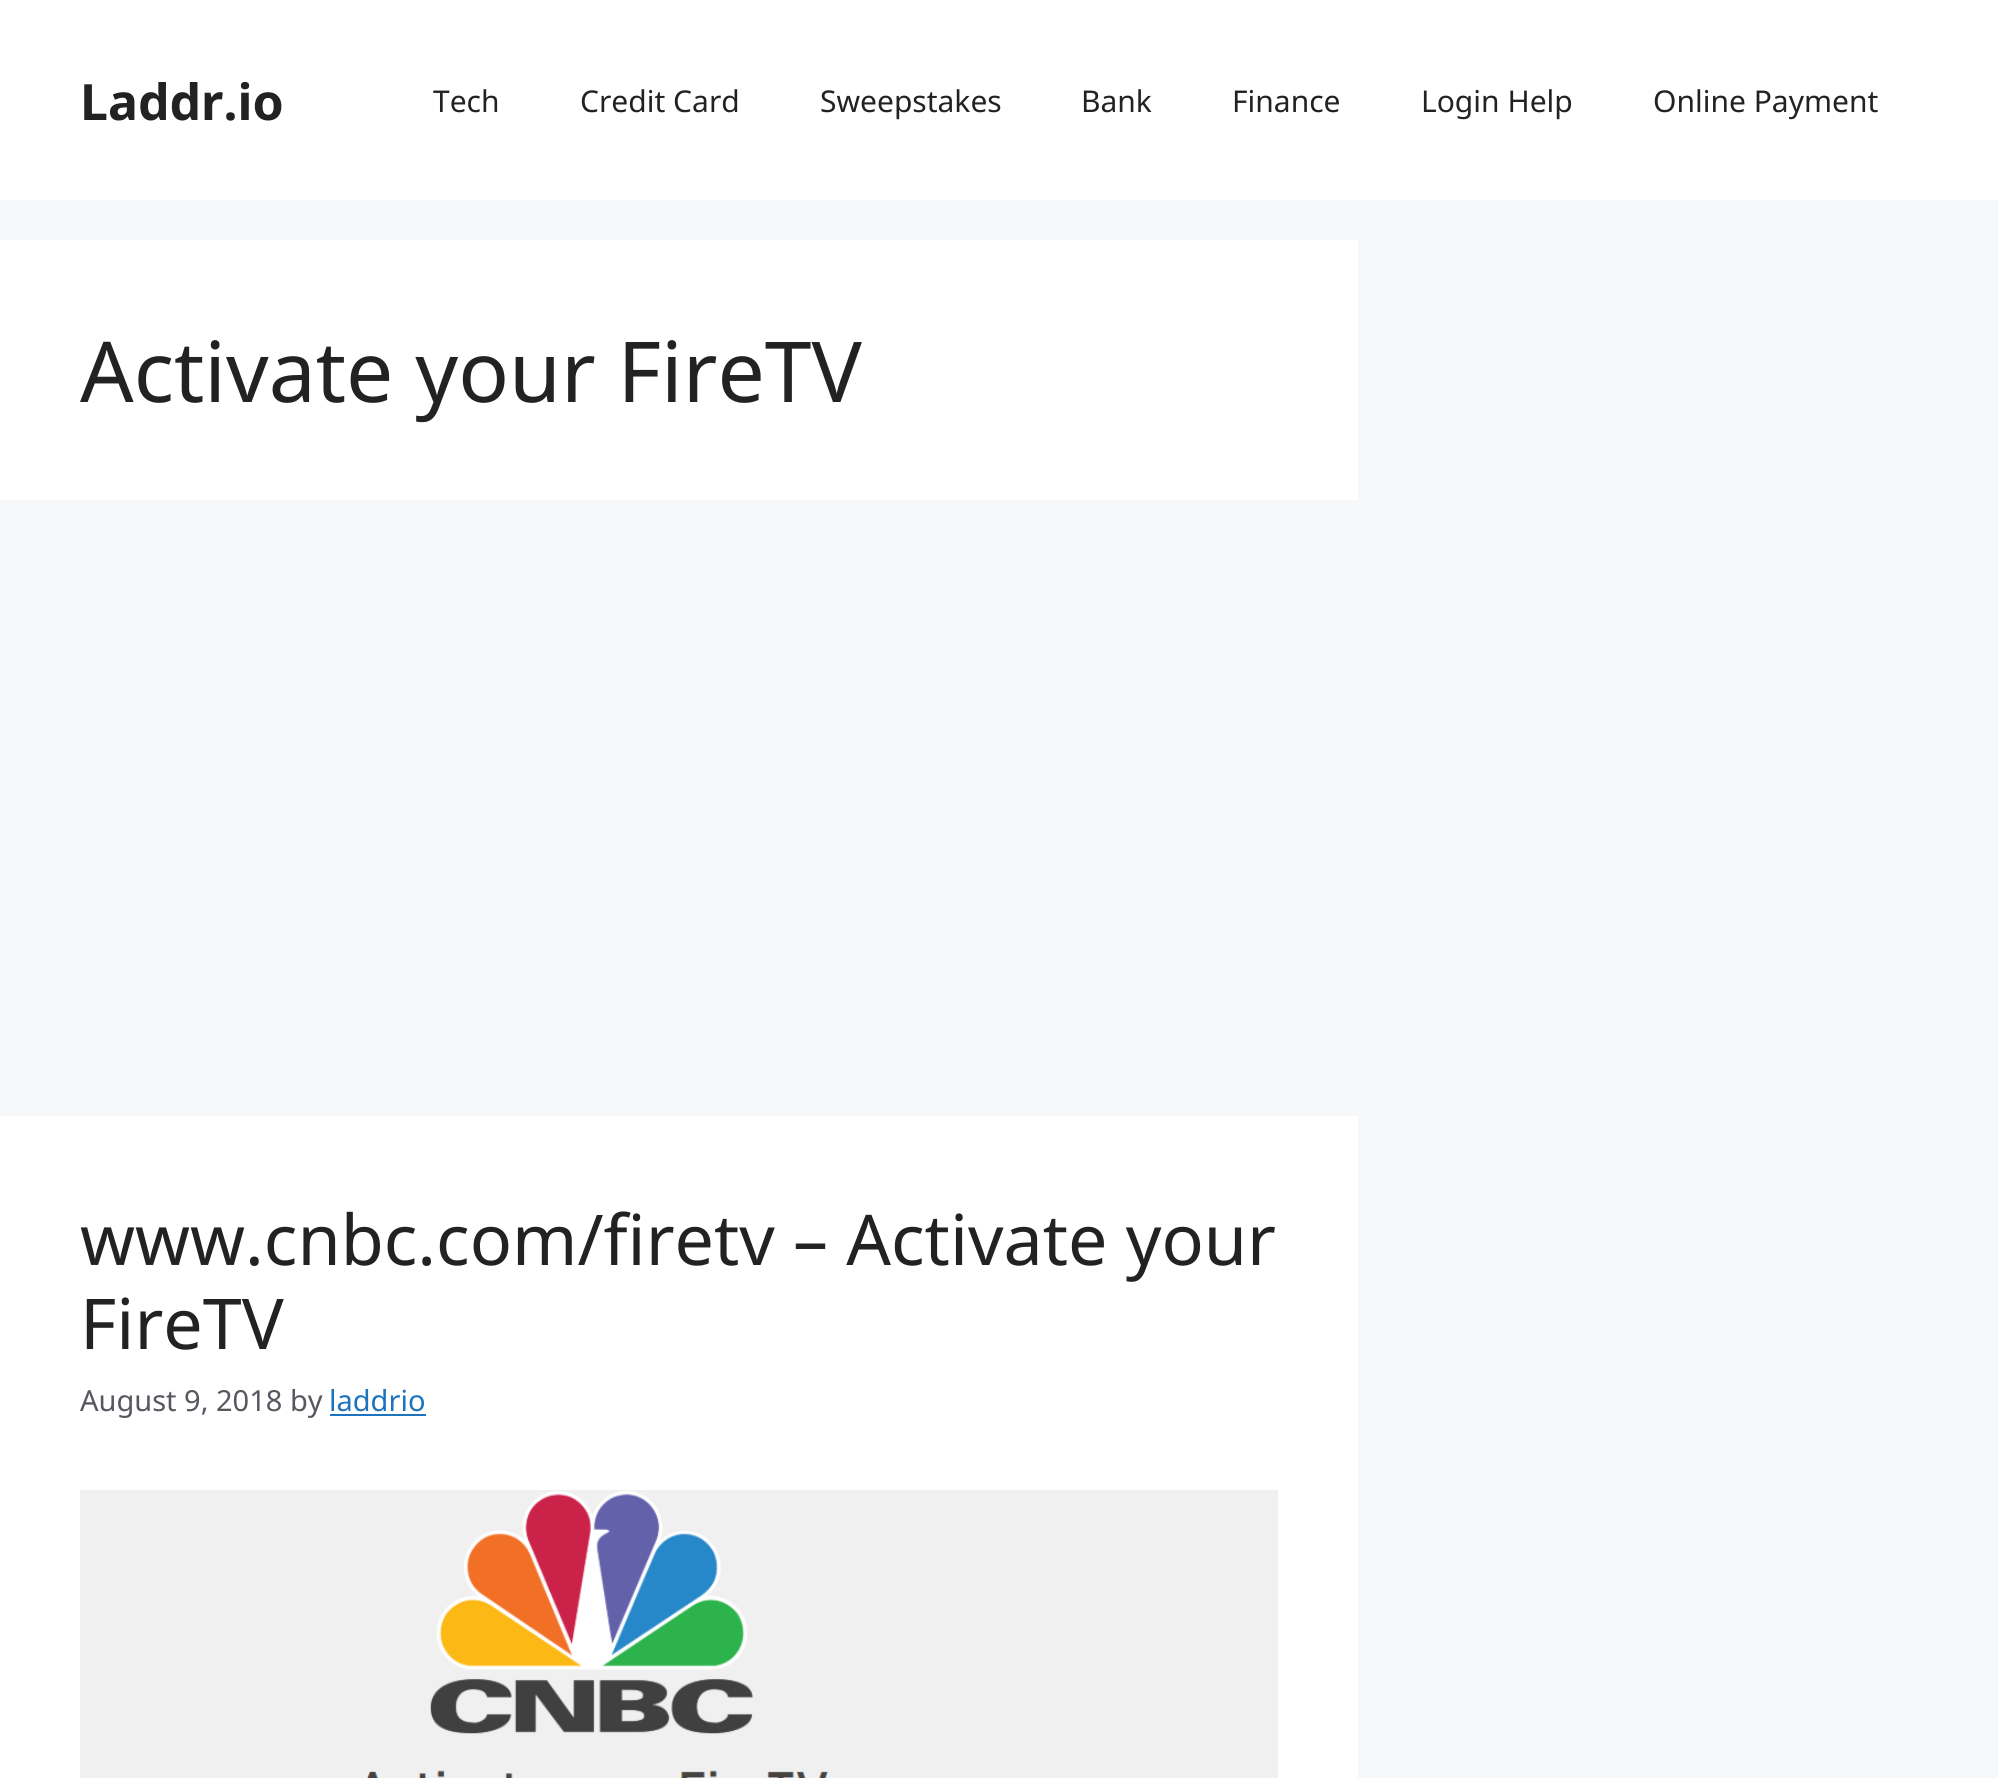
import math
import cairo



def draw_image(context, path, x, y, w, h):
    context.save()
    context.set_source_surface(cairo.ImageSurface.create_from_png(path), x, y)
    context.rectangle(x, y, w, h)
    context.fill()
    context.restore()


def draw(context):
    context.set_source_rgb(247 / 255, 248 / 255, 249 / 255)
    context.paint()
    context.set_source_rgb(1, 1, 1)
    context.rectangle(0, 0, 1998, 200)
    context.fill()
    context.rectangle(0, 240, 1358, 260)
    context.fill()
    context.rectangle(0, 1116, 1358, 662)
    context.fill()
    context.set_source_rgb(30 / 255, 115 / 255, 190 / 255)
    context.rectangle(330, 1414, 96, 2)
    context.fill()
    draw_image(context, "images/1.png", 80, 1490, 1198, 288)
    context.select_font_face("Noto Sans", cairo.FontSlant.NORMAL, cairo.FontWeight.BOLD)
    context.set_font_size(50)
    context.set_source_rgb(34 / 255, 34 / 255, 34 / 255)
    context.move_to(80, 120)
    context.show_text("Laddr.io")
    context.select_font_face("Noto Sans")
    context.set_font_size(30)
    context.move_to(433, 112)
    context.show_text("Tech")
    context.move_to(580, 112)
    context.show_text("Credit Card")
    context.move_to(820, 112)
    context.show_text("Sweepstakes")
    context.move_to(1081, 112)
    context.show_text("Bank")
    context.move_to(1232, 112)
    context.show_text("Finance")
    context.move_to(1421, 112)
    context.show_text("Login Help")
    context.move_to(1653, 112)
    context.show_text("Online Payment")
    context.set_font_size(84)
    context.move_to(80, 402)
    context.show_text("Activate your FireTV")
    context.set_font_size(70)
    context.move_to(80, 1265)
    context.show_text("www.cnbc.com/firetv – Activate your")
    context.move_to(80, 1349)
    context.show_text("FireTV")
    context.set_font_size(29)
    context.set_source_rgb(87 / 255, 87 / 255, 96 / 255)
    context.move_to(80, 1411)
    context.show_text("August 9, 2018 by")
    context.set_source_rgb(30 / 255, 115 / 255, 190 / 255)
    context.move_to(329, 1411)
    context.show_text("laddrio")


surface = cairo.ImageSurface(cairo.Format.RGB24, 1998, 1778)
context = cairo.Context(surface)
options = cairo.FontOptions()
options.set_hint_metrics(cairo.HintMetrics.OFF)
options.set_hint_style(cairo.HintStyle.NONE)
context.set_font_options(options)
context.set_miter_limit(4)
draw(context)
surface.write_to_png("out.png")
